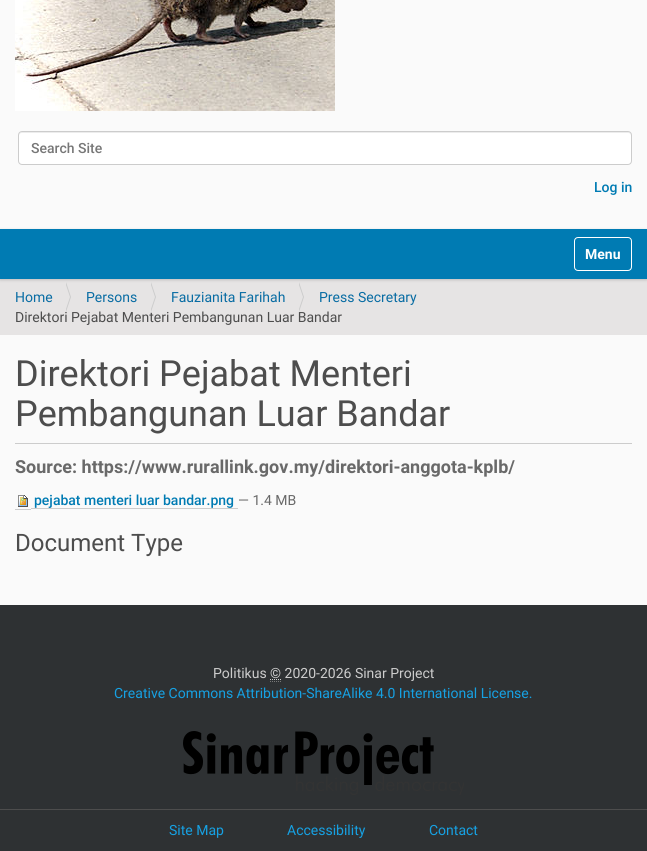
import math
import cairo



def rounded_rect(context, x, y, w, h, r):
    context.new_sub_path()
    for i, (u, v) in enumerate([(x + w - r, y + h - r), (x + r, y + h - r), (x + r, y + r), (x + w - r, y + r)]):
        context.arc(u, v, r, i * math.pi / 2, (i + 1) * math.pi / 2)
    context.close_path()


def draw_shadow(context, x, y, w, h, r, blur, alpha):
    context.push_group_with_content(cairo.Content.ALPHA)
    context.set_operator(cairo.Operator.SOURCE)
    for i in range(15, -16, -2):
        e = blur * i / 6
        if min(w, h) + 2 * e > 0:
            context.set_source_rgba(0, 0, 0, alpha * math.erfc((i - 1) / 8.5) / 2)
            rounded_rect(context, x - e, y - e, w + 2 * e, h + 2 * e, max(0, min(r + e + blur * .6, min(w, h) / 2 + e)))
            context.fill()
    context.mask(context.pop_group())


def draw_image(context, path, x, y, w, h):
    context.save()
    context.set_source_surface(cairo.ImageSurface.create_from_png(path), x, y)
    context.rectangle(x, y, w, h)
    context.fill()
    context.restore()


def draw(context):
    context.set_source_rgb(250 / 255, 250 / 255, 250 / 255)
    context.paint()
    draw_image(context, "images/1.png", 15, 0, 320, 111)
    context.set_source_rgb(1, 1, 1)
    rounded_rect(context, 18, 131, 614, 34, 4)
    context.fill()
    context.set_source_rgb(236 / 255, 236 / 255, 236 / 255)
    context.new_path()
    context.move_to(22, 133)
    context.line_to(628, 133)
    context.curve_to(630, 133, 631, 134, 631, 136)
    context.line_to(631, 135)
    context.curve_to(631, 133, 630, 132, 628, 132)
    context.line_to(22, 132)
    context.curve_to(20, 132, 19, 133, 19, 135)
    context.line_to(19, 136)
    context.curve_to(19, 134, 20, 133, 22, 133)
    context.close_path()
    context.fill()
    rounded_rect(context, 18.5, 131.5, 613, 33, 3.5)
    context.set_source_rgb(204 / 255, 204 / 255, 204 / 255)
    context.set_line_width(1)
    context.stroke()
    context.set_source_rgb(230 / 255, 228 / 255, 228 / 255)
    context.rectangle(0, 279, 647, 56)
    context.fill()
    context.set_source_rgb(0, 0, 0)
    draw_shadow(context, 0, 230, 647, 50, 0, 1.5, 0.17)
    context.set_source_rgb(0, 123 / 255, 179 / 255)
    context.rectangle(0, 229, 647, 50)
    context.fill()
    rounded_rect(context, 574.5, 237.5, 57, 33, 3.5)
    context.set_source_rgb(1, 1, 1)
    context.stroke()
    context.set_source_rgb(204 / 255, 204 / 255, 204 / 255)
    context.new_path()
    context.move_to(66, 312)
    context.line_to(66, 282)
    context.line_to(71, 297)
    context.close_path()
    context.fill()
    context.set_source_rgb(230 / 255, 228 / 255, 228 / 255)
    context.new_path()
    context.move_to(65, 312)
    context.line_to(65, 282)
    context.line_to(70, 297)
    context.close_path()
    context.fill()
    context.set_source_rgb(204 / 255, 204 / 255, 204 / 255)
    context.new_path()
    context.move_to(151, 312)
    context.line_to(151, 282)
    context.line_to(156, 297)
    context.close_path()
    context.fill()
    context.set_source_rgb(230 / 255, 228 / 255, 228 / 255)
    context.new_path()
    context.move_to(150, 312)
    context.line_to(150, 282)
    context.line_to(155, 297)
    context.close_path()
    context.fill()
    context.set_source_rgb(204 / 255, 204 / 255, 204 / 255)
    context.new_path()
    context.move_to(299, 312)
    context.line_to(299, 282)
    context.line_to(304, 297)
    context.close_path()
    context.fill()
    context.set_source_rgb(230 / 255, 228 / 255, 228 / 255)
    context.new_path()
    context.move_to(298, 312)
    context.line_to(298, 282)
    context.line_to(303, 297)
    context.close_path()
    context.fill()
    context.set_source_rgb(204 / 255, 204 / 255, 204 / 255)
    context.rectangle(15, 443, 617, 1)
    context.fill()
    draw_image(context, "images/2.png", 18, 495, 10, 12)
    context.rectangle(15, 509, 16, 1)
    context.fill()
    context.rectangle(31, 508, 207, 1)
    context.fill()
    context.set_source_rgb(46 / 255, 49 / 255, 51 / 255)
    context.rectangle(0, 605, 647, 246)
    context.fill()
    context.new_path()
    context.move_to(270, 679.5)
    context.line_to(281, 679.5)
    context.set_source_rgb(204 / 255, 204 / 255, 204 / 255)
    context.set_dash([1, 1])
    context.stroke()
    context.new_path()
    context.move_to(270, 681.5)
    context.line_to(281, 681.5)
    context.set_source_rgb(119 / 255, 119 / 255, 119 / 255)
    context.stroke()
    draw_image(context, "images/3.png", 183, 731, 281, 64)
    context.set_source_rgb(77 / 255, 77 / 255, 77 / 255)
    context.rectangle(0, 809, 647, 1)
    context.fill()
    context.select_font_face("Roboto Medium")
    context.set_font_size(14)
    context.set_source_rgb(119 / 255, 119 / 255, 119 / 255)
    context.move_to(31, 153)
    context.show_text("Search Site")
    context.set_source_rgb(0, 123 / 255, 179 / 255)
    context.move_to(594, 192)
    context.show_text("Log in")
    context.select_font_face("Roboto", cairo.FontSlant.NORMAL, cairo.FontWeight.BOLD)
    context.set_source_rgb(1, 1, 1)
    context.move_to(585, 259)
    context.show_text("Menu")
    context.select_font_face("Roboto")
    context.set_source_rgb(8 / 255, 108 / 255, 163 / 255)
    context.move_to(15, 302)
    context.show_text("Home")
    context.move_to(86, 302)
    context.show_text("Persons")
    context.move_to(171, 302)
    context.show_text("Fauzianita Farihah")
    context.move_to(319, 302)
    context.show_text("Press Secretary")
    context.set_source_rgb(77 / 255, 77 / 255, 77 / 255)
    context.move_to(15, 322)
    context.show_text("Direktori Pejabat Menteri Pembangunan Luar Bandar")
    context.set_font_size(36)
    context.move_to(15, 386)
    context.show_text("Direktori Pejabat Menteri")
    context.move_to(15, 426)
    context.show_text("Pembangunan Luar Bandar")
    context.select_font_face("Roboto", cairo.FontSlant.NORMAL, cairo.FontWeight.BOLD)
    context.set_font_size(18)
    context.set_source_rgb(105 / 255, 105 / 255, 105 / 255)
    context.move_to(15, 473)
    context.show_text("Source: https://www.rurallink.gov.my/direktori-anggota-kplb/")
    context.select_font_face("Roboto Medium")
    context.set_font_size(14)
    context.set_source_rgb(0, 123 / 255, 179 / 255)
    context.move_to(34, 505)
    context.show_text("pejabat menteri luar bandar.png")
    context.select_font_face("Roboto")
    context.set_source_rgb(105 / 255, 105 / 255, 105 / 255)
    context.move_to(238, 505)
    context.show_text("— 1.4 MB")
    context.set_font_size(24)
    context.set_source_rgb(77 / 255, 77 / 255, 77 / 255)
    context.move_to(15, 551)
    context.show_text("Document Type")
    context.set_font_size(14)
    context.set_source_rgb(204 / 255, 204 / 255, 204 / 255)
    context.move_to(213, 678)
    context.show_text("Politikus © 2020-2026 Sinar Project")
    context.set_source_rgb(22 / 255, 161 / 255, 227 / 255)
    context.move_to(114, 698)
    context.show_text("Creative Commons Attribution-ShareAlike 4.0 International License.")
    context.move_to(169, 835)
    context.show_text("Site Map")
    context.move_to(287, 835)
    context.show_text("Accessibility")
    context.move_to(429, 835)
    context.show_text("Contact")


surface = cairo.ImageSurface(cairo.Format.RGB24, 647, 851)
context = cairo.Context(surface)
options = cairo.FontOptions()
options.set_hint_metrics(cairo.HintMetrics.OFF)
options.set_hint_style(cairo.HintStyle.NONE)
context.set_font_options(options)
context.set_miter_limit(4)
draw(context)
surface.write_to_png("out.png")
